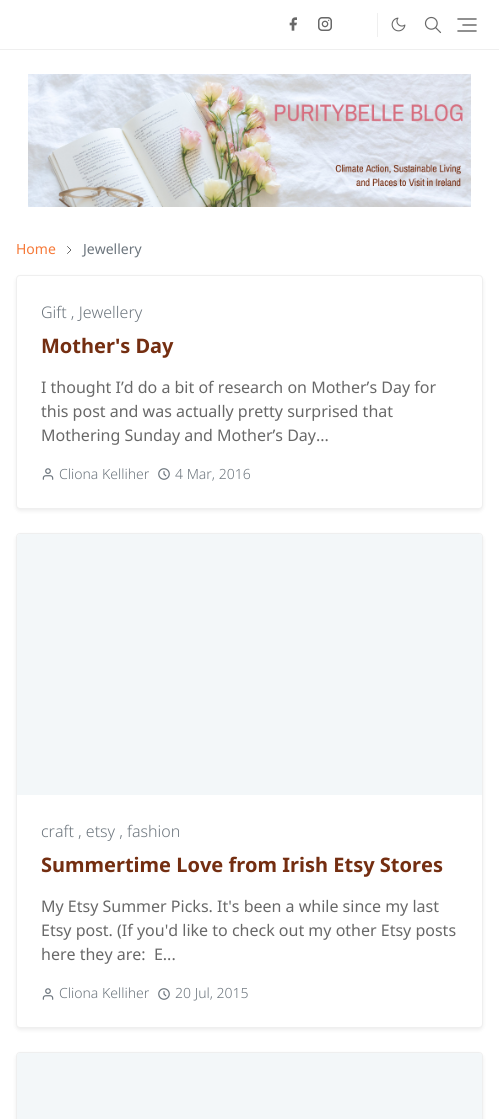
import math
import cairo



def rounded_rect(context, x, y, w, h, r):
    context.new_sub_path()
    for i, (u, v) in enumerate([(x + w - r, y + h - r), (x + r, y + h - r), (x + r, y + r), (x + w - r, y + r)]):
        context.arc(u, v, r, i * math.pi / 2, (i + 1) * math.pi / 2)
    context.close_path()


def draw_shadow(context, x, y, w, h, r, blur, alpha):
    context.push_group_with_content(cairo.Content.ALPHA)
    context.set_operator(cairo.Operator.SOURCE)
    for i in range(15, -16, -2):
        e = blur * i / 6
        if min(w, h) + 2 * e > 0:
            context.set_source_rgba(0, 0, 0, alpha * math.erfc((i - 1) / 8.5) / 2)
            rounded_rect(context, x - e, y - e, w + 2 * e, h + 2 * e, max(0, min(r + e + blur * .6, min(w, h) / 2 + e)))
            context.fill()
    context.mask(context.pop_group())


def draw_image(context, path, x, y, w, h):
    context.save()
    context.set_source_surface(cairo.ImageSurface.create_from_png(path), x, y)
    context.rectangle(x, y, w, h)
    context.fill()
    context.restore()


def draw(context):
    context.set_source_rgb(1, 1, 1)
    context.paint()
    context.set_source_rgb(239 / 255, 239 / 255, 239 / 255)
    context.rectangle(0, 49, 499, 1)
    context.fill()
    context.rectangle(377, 13, 1, 24)
    context.fill()
    draw_image(context, "images/1.png", 289, 17, 8, 14)
    draw_image(context, "images/2.png", 318, 17, 14, 14)
    draw_image(context, "images/3.png", 391, 17, 15, 15)
    draw_image(context, "images/4.png", 424, 16, 18, 18)
    context.new_path()
    context.move_to(458, 19)
    context.line_to(476, 19)
    context.move_to(463, 25)
    context.line_to(476, 25)
    context.move_to(458, 31)
    context.line_to(476, 31)
    context.set_source_rgb(104 / 255, 104 / 255, 104 / 255)
    context.set_line_width(1.5)
    context.set_line_cap(cairo.LineCap.ROUND)
    context.set_line_join(cairo.LineJoin.ROUND)
    context.stroke()
    draw_image(context, "images/5.png", 28, 74, 443, 133)
    draw_image(context, "images/6.png", 67, 246, 4, 8)
    context.set_source_rgb(0, 0, 0)
    draw_shadow(context, 16, 277, 467, 234, 4, 2, 0.07)
    context.set_source_rgb(1, 1, 1)
    rounded_rect(context, 16.5, 275.5, 466, 233, 3.5)
    context.fill_preserve()
    context.set_source_rgb(239 / 255, 239 / 255, 239 / 255)
    context.set_line_width(1)
    context.set_line_cap(cairo.LineCap.BUTT)
    context.set_line_join(cairo.LineJoin.MITER)
    context.stroke()
    draw_image(context, "images/7.png", 42, 468, 12, 12)
    draw_image(context, "images/8.png", 158, 468, 12, 12)
    context.set_source_rgb(0, 0, 0)
    draw_shadow(context, 16, 535, 467, 495, 4, 2, 0.07)
    context.set_source_rgb(1, 1, 1)
    rounded_rect(context, 16.5, 533.5, 466, 494, 3.5)
    context.fill_preserve()
    context.set_source_rgb(239 / 255, 239 / 255, 239 / 255)
    context.stroke()
    context.set_source_rgb(243 / 255, 247 / 255, 249 / 255)
    context.new_path()
    context.move_to(20, 534)
    context.line_to(479, 534)
    context.curve_to(480.5, 534, 482, 535.5, 482, 537)
    context.line_to(482, 795)
    context.line_to(17, 795)
    context.line_to(17, 537)
    context.curve_to(17, 535.5, 18.5, 534, 20, 534)
    context.close_path()
    context.fill()
    draw_image(context, "images/7.png", 42, 988, 12, 12)
    draw_image(context, "images/8.png", 158, 988, 12, 12)
    context.set_source_rgb(0, 0, 0)
    draw_shadow(context, 16, 1054, 467, 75, 4, 2, 0.07)
    rounded_rect(context, 16.5, 1052.5, 466, 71, 3.5)
    context.set_source_rgb(239 / 255, 239 / 255, 239 / 255)
    context.stroke()
    context.set_source_rgb(243 / 255, 247 / 255, 249 / 255)
    context.new_path()
    context.move_to(20, 1053)
    context.line_to(479, 1053)
    context.curve_to(480.5, 1053, 482, 1054.5, 482, 1056)
    context.line_to(482, 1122)
    context.line_to(17, 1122)
    context.line_to(17, 1056)
    context.curve_to(17, 1054.5, 18.5, 1053, 20, 1053)
    context.close_path()
    context.fill()
    context.select_font_face("Noto Sans")
    context.set_font_size(14)
    context.set_source_rgb(246 / 255, 121 / 255, 56 / 255)
    context.move_to(16, 254)
    context.show_text("Home")
    context.set_source_rgb(108 / 255, 117 / 255, 125 / 255)
    context.move_to(83, 254)
    context.show_text("Jewellery")
    context.select_font_face("Noto Sans Light")
    context.set_font_size(16)
    context.move_to(41, 318)
    context.show_text("Gift , Jewellery")
    context.select_font_face("Noto Sans", cairo.FontSlant.NORMAL, cairo.FontWeight.BOLD)
    context.set_font_size(20)
    context.set_source_rgb(116 / 255, 46 / 255, 17 / 255)
    context.move_to(41, 353)
    context.show_text("Mother's Day")
    context.select_font_face("Noto Sans")
    context.set_font_size(16)
    context.set_source_rgb(104 / 255, 104 / 255, 104 / 255)
    context.move_to(41, 393)
    context.show_text("I thought I’d do a bit of research on Mother’s Day for")
    context.move_to(41, 417)
    context.show_text("this post and was actually pretty surprised that")
    context.move_to(41, 441)
    context.show_text("Mothering Sunday and Mother’s Day...")
    context.select_font_face("Noto Sans Light")
    context.set_font_size(14)
    context.set_source_rgb(108 / 255, 117 / 255, 125 / 255)
    context.move_to(59, 479)
    context.show_text("Cliona Kelliher")
    context.move_to(175, 479)
    context.show_text("4 Mar, 2016")
    context.set_font_size(16)
    context.move_to(41, 837)
    context.show_text("craft , etsy , fashion")
    context.select_font_face("Noto Sans", cairo.FontSlant.NORMAL, cairo.FontWeight.BOLD)
    context.set_font_size(20)
    context.set_source_rgb(116 / 255, 46 / 255, 17 / 255)
    context.move_to(41, 872)
    context.show_text("Summertime Love from Irish Etsy Stores")
    context.select_font_face("Noto Sans")
    context.set_font_size(16)
    context.set_source_rgb(104 / 255, 104 / 255, 104 / 255)
    context.move_to(41, 912)
    context.show_text("My Etsy Summer Picks. It's been a while since my last")
    context.move_to(41, 936)
    context.show_text("Etsy post. (If you'd like to check out my other Etsy posts")
    context.move_to(41, 960)
    context.show_text("here they are:  E...")
    context.select_font_face("Noto Sans Light")
    context.set_font_size(14)
    context.set_source_rgb(108 / 255, 117 / 255, 125 / 255)
    context.move_to(59, 998)
    context.show_text("Cliona Kelliher")
    context.move_to(175, 998)
    context.show_text("20 Jul, 2015")


surface = cairo.ImageSurface(cairo.Format.RGB24, 499, 1119)
context = cairo.Context(surface)
options = cairo.FontOptions()
options.set_hint_metrics(cairo.HintMetrics.OFF)
options.set_hint_style(cairo.HintStyle.NONE)
context.set_font_options(options)
context.set_miter_limit(4)
draw(context)
surface.write_to_png("out.png")
